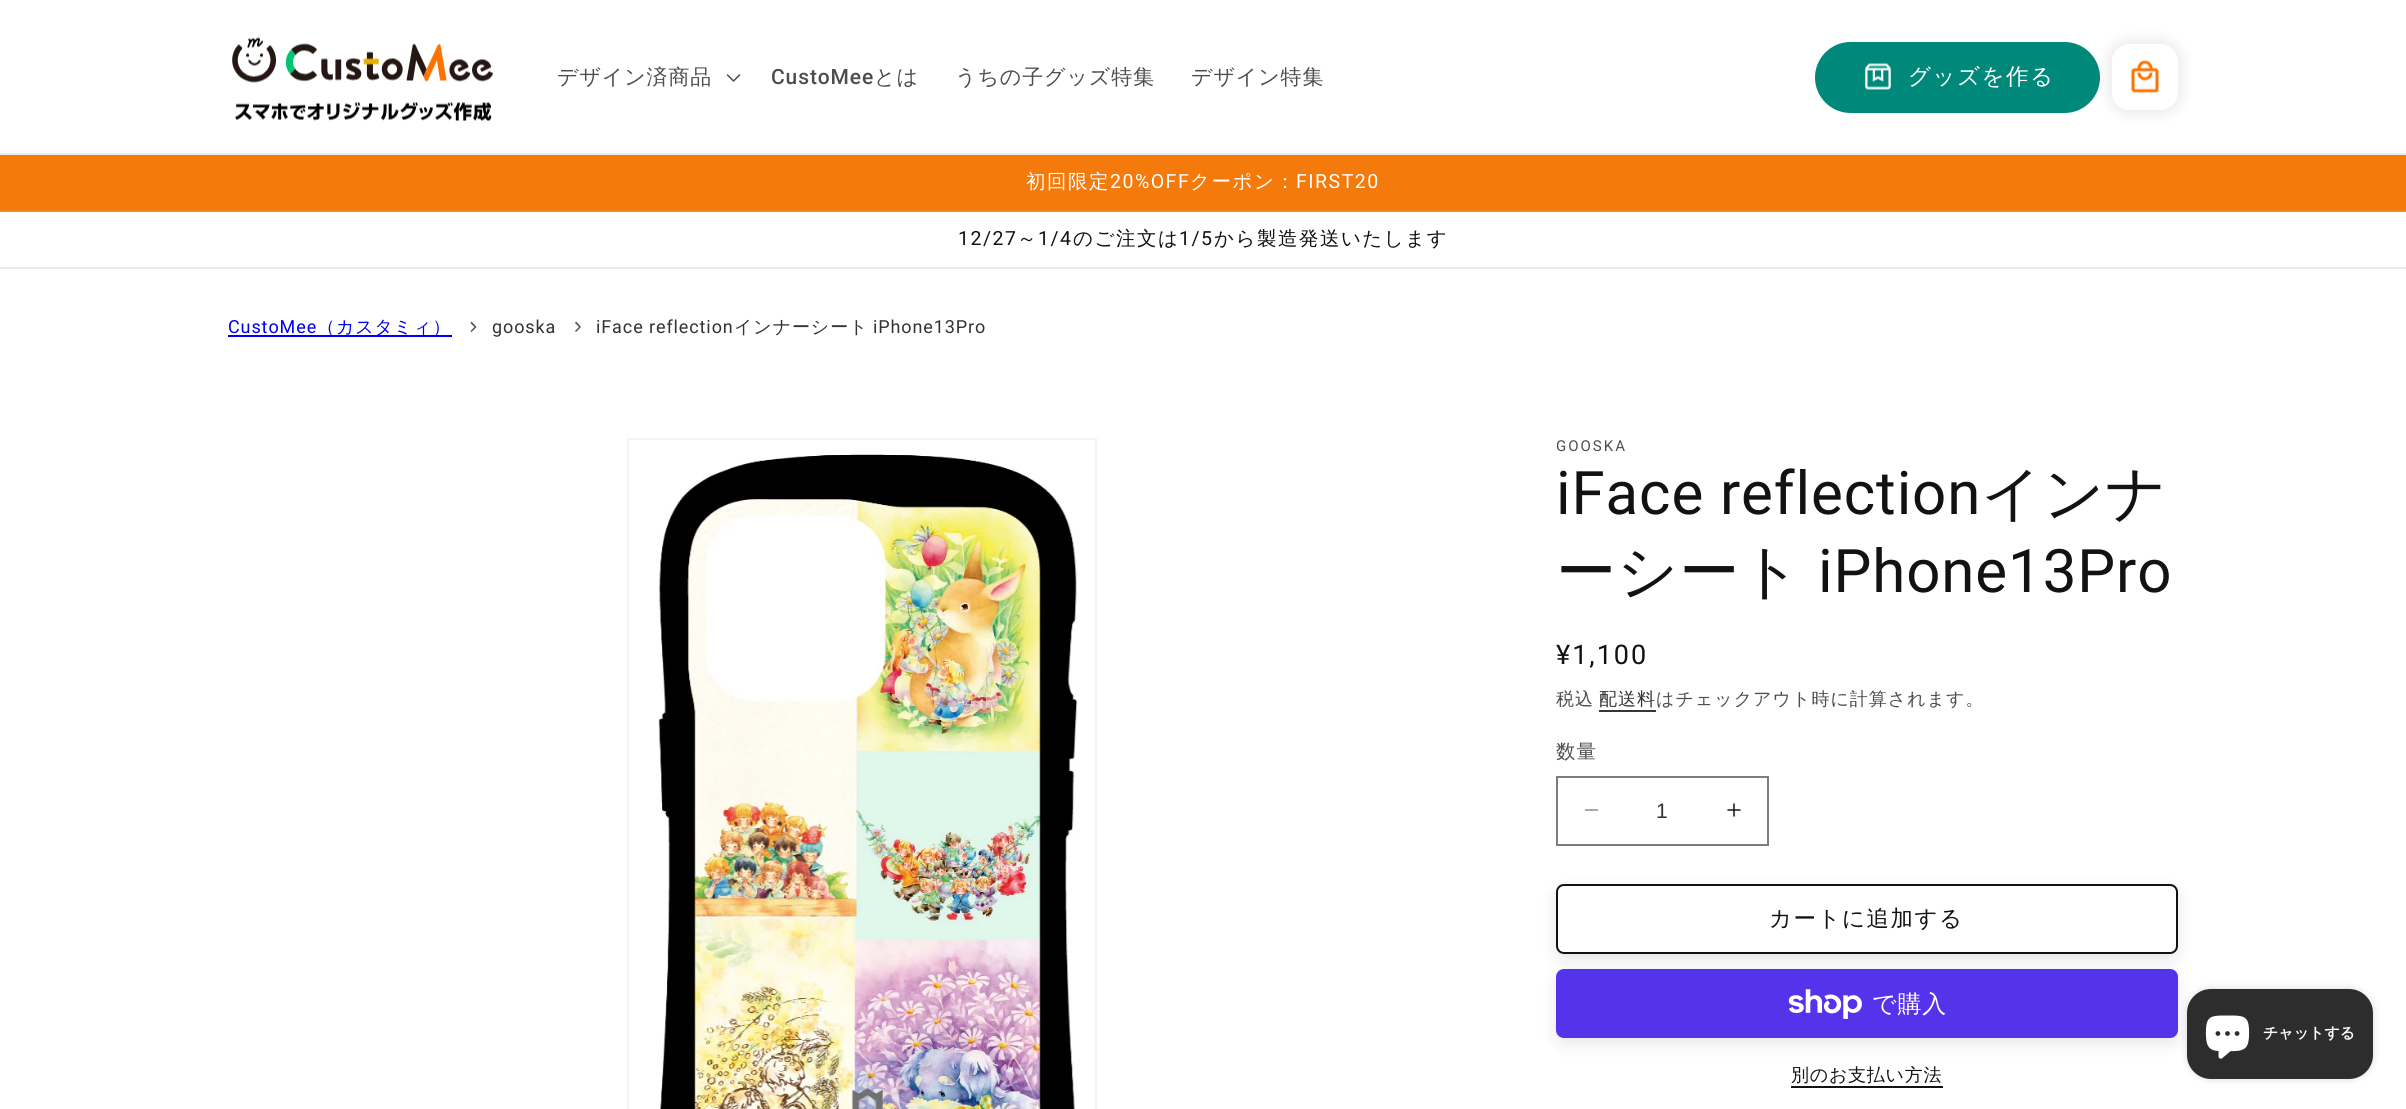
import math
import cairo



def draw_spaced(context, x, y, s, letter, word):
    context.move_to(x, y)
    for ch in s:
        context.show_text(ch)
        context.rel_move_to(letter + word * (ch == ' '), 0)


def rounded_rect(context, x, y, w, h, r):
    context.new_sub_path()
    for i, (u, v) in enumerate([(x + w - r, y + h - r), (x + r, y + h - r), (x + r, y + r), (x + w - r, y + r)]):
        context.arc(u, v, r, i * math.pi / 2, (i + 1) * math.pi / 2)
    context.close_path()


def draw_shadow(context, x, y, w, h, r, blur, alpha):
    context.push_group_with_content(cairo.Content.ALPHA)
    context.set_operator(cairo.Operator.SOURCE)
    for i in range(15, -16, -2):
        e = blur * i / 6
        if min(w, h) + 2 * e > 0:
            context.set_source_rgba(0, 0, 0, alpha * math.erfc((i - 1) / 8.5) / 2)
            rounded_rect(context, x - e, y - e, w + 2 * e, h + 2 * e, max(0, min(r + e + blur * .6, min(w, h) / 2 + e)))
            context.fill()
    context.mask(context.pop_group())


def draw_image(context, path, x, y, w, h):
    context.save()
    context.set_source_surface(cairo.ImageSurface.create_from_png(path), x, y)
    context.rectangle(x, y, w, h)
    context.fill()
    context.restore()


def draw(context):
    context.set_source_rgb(1, 1, 1)
    context.paint()
    context.set_source_rgb(236 / 255, 236 / 255, 236 / 255)
    context.rectangle(0, 153, 2406, 2)
    context.fill()
    draw_image(context, "images/1.png", 232, 37, 261, 84)
    draw_image(context, "images/2.png", 726, 74, 15, 8)
    context.set_source_rgb(0, 137 / 255, 123 / 255)
    rounded_rect(context, 1815, 42, 285, 71, 35.5)
    context.fill()
    draw_image(context, "images/3.png", 1865, 63, 26, 27)
    context.save()
    context.set_fill_rule(cairo.FillRule.EVEN_ODD)
    context.new_path()
    context.move_to(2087, 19)
    context.line_to(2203, 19)
    context.line_to(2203, 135)
    context.line_to(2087, 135)
    context.close_path()
    context.move_to(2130, 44)
    context.line_to(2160, 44)
    context.curve_to(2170, 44, 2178, 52, 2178, 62)
    context.line_to(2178, 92)
    context.curve_to(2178, 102, 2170, 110, 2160, 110)
    context.line_to(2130, 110)
    context.curve_to(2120, 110, 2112, 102, 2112, 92)
    context.line_to(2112, 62)
    context.curve_to(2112, 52, 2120, 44, 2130, 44)
    context.close_path()
    context.clip()
    context.set_source_rgb(0, 0, 0)
    draw_shadow(context, 2106, 38, 78, 78, 24, 6, 0.07)
    context.restore()
    draw_image(context, "images/4.png", 2131, 60, 28, 33)
    context.set_source_rgb(244 / 255, 122 / 255, 11 / 255)
    context.rectangle(0, 155, 2406, 55)
    context.fill()
    context.set_source_rgb(245 / 255, 133 / 255, 31 / 255)
    context.rectangle(0, 210, 2406, 2)
    context.fill()
    context.set_source_rgb(236 / 255, 236 / 255, 236 / 255)
    context.rectangle(0, 267, 2406, 2)
    context.fill()
    context.set_source_rgb(0, 0, 238 / 255)
    context.rectangle(228, 335, 224, 2)
    context.fill()
    context.set_source_rgb(77 / 255, 77 / 255, 77 / 255)
    context.new_path()
    context.move_to(471.5, 321.5)
    context.line_to(476.5, 327)
    context.line_to(474.5, 327)
    context.line_to(470.5, 323)
    context.close_path()
    context.move_to(476.5, 327)
    context.line_to(471.5, 332)
    context.line_to(470.5, 331)
    context.line_to(474.5, 327)
    context.close_path()
    context.fill()
    context.new_path()
    context.move_to(576, 321.5)
    context.line_to(581, 327)
    context.line_to(579, 327)
    context.line_to(575, 323)
    context.close_path()
    context.move_to(581, 327)
    context.line_to(576, 332)
    context.line_to(575, 331)
    context.line_to(579, 327)
    context.close_path()
    context.fill()
    context.rectangle(628, 439, 468, 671)
    context.set_source_rgb(243 / 255, 243 / 255, 243 / 255)
    context.stroke()
    draw_image(context, "images/5.png", 658, 454, 420, 655)
    context.set_source_rgb(54 / 255, 54 / 255, 54 / 255)
    context.rectangle(1599, 710, 57, 2)
    context.fill()
    draw_image(context, "images/6.png", 1584, 809, 15, 2)
    draw_image(context, "images/7.png", 1727, 803, 14, 14)
    context.rectangle(1557, 777, 211, 68)
    context.set_source_rgb(125 / 255, 125 / 255, 125 / 255)
    context.stroke()
    context.set_source_rgb(18 / 255, 18 / 255, 18 / 255)
    draw_shadow(context, 1556, 890, 622, 70, 8, 7.5, 0.1)
    draw_shadow(context, 1556, 975, 622, 69, 8, 7.5, 0.1)
    context.set_source_rgb(1, 1, 1)
    rounded_rect(context, 1556, 884, 622, 70, 8)
    context.fill()
    rounded_rect(context, 1557, 885, 620, 68, 7)
    context.set_source_rgb(18 / 255, 18 / 255, 18 / 255)
    context.stroke()
    context.set_source_rgb(84 / 255, 51 / 255, 235 / 255)
    rounded_rect(context, 1556, 969, 622, 69, 8)
    context.fill()
    draw_image(context, "images/8.png", 1788, 989, 74, 30)
    context.set_source_rgb(18 / 255, 18 / 255, 18 / 255)
    context.rectangle(1791, 1086, 152, 2)
    context.fill()
    context.set_source_rgb(0, 0, 0)
    draw_shadow(context, 2187, 989, 186, 90, 24, 4, 0.15)
    context.set_source_rgb(45 / 255, 45 / 255, 45 / 255)
    rounded_rect(context, 2187, 989, 186, 90, 24)
    context.fill()
    draw_image(context, "images/9.png", 2205, 1015, 45, 44)
    context.select_font_face("WenQuanYi Zen Hei Medium")
    context.set_font_size(21)
    context.set_source_rgb(77 / 255, 77 / 255, 77 / 255)
    draw_spaced(context, 557, 84, "デザイン済商品", 0.9, 0)
    context.select_font_face("Roboto Medium")
    draw_spaced(context, 771, 84, "CustoMee", 0.9, 0)
    context.select_font_face("WenQuanYi Zen Hei Medium")
    draw_spaced(context, 874, 84, "とは", 0.9, 0)
    draw_spaced(context, 955, 84, "うちの子グッズ特集", 0.9, 0)
    draw_spaced(context, 1191, 84, "デザイン特集", 0.9, 0)
    context.set_font_size(22.5)
    context.set_source_rgb(1, 1, 1)
    draw_spaced(context, 1908, 84, "グッズを作る", 1.5, 0)
    context.set_font_size(19.5)
    draw_spaced(context, 1026, 188, "初回限定", 1.5, 0)
    context.select_font_face("Roboto")
    draw_spaced(context, 1110, 188, "20%OFF", 1.5, 0)
    context.select_font_face("WenQuanYi Zen Hei Medium")
    draw_spaced(context, 1190, 188, "クーポン：", 1.5, 0)
    context.select_font_face("Roboto")
    draw_spaced(context, 1296, 188, "FIRST20", 1.5, 0)
    context.set_source_rgb(18 / 255, 18 / 255, 18 / 255)
    draw_spaced(context, 958, 245, "12/27", 1.5, 0)
    context.select_font_face("WenQuanYi Zen Hei Medium")
    draw_spaced(context, 1017, 245, "～", 1.5, 0)
    context.select_font_face("Roboto")
    draw_spaced(context, 1038, 245, "1/4", 1.5, 0)
    context.select_font_face("WenQuanYi Zen Hei Medium")
    draw_spaced(context, 1073, 245, "のご注文は", 1.5, 0)
    context.select_font_face("Roboto")
    draw_spaced(context, 1179, 245, "1/5", 1.5, 0)
    context.select_font_face("WenQuanYi Zen Hei Medium")
    draw_spaced(context, 1214, 245, "から製造発送いたします", 1.5, 0)
    context.select_font_face("Roboto")
    context.set_font_size(18)
    context.set_source_rgb(0, 0, 238 / 255)
    draw_spaced(context, 228, 333, "CustoMee", 0.9, 0)
    context.select_font_face("WenQuanYi Zen Hei Medium")
    draw_spaced(context, 317, 333, "（カスタミィ）", 0.9, 0)
    context.select_font_face("Roboto")
    context.set_source_rgb(51 / 255, 51 / 255, 51 / 255)
    draw_spaced(context, 492, 333, "gooska", 0.9, 0)
    draw_spaced(context, 596, 333, "iFace reflection", 0.9, 0)
    context.select_font_face("WenQuanYi Zen Hei Medium")
    draw_spaced(context, 734, 333, "インナーシート", 0.9, 0)
    context.select_font_face("Roboto")
    draw_spaced(context, 873, 333, "iPhone13Pro", 0.9, 0)
    context.set_font_size(15)
    context.set_source_rgb(77 / 255, 77 / 255, 77 / 255)
    draw_spaced(context, 1556, 451, "GOOSKA", 2, 0)
    context.set_font_size(60)
    context.set_source_rgb(18 / 255, 18 / 255, 18 / 255)
    draw_spaced(context, 1556, 514, "iFace reflection", 0.9, 0)
    context.select_font_face("WenQuanYi Zen Hei Medium")
    draw_spaced(context, 1981, 514, "インナ", 0.9, 0)
    draw_spaced(context, 1556, 592, "ーシート", 0.9, 0)
    context.select_font_face("Roboto")
    draw_spaced(context, 1818, 592, "iPhone13Pro", 0.9, 0)
    context.set_font_size(27)
    draw_spaced(context, 1556, 664, "¥1,100", 2, 0)
    context.select_font_face("WenQuanYi Zen Hei Medium")
    context.set_font_size(18)
    context.set_source_rgb(77 / 255, 77 / 255, 77 / 255)
    draw_spaced(context, 1556, 705, "税込", 1, 0)
    context.set_source_rgb(51 / 255, 51 / 255, 51 / 255)
    draw_spaced(context, 1599, 705, "配送料", 1, 0)
    context.set_source_rgb(77 / 255, 77 / 255, 77 / 255)
    draw_spaced(context, 1656, 705, "はチェックアウト時に計算されます。", 1, 0)
    context.set_font_size(19.5)
    draw_spaced(context, 1556, 758, "数量", 1, 0)
    context.select_font_face("Liberation Sans")
    context.set_font_size(21)
    context.set_source_rgb(51 / 255, 51 / 255, 51 / 255)
    context.move_to(1656, 818)
    context.show_text("1")
    context.select_font_face("WenQuanYi Zen Hei Medium")
    context.set_font_size(22.5)
    context.set_source_rgb(18 / 255, 18 / 255, 18 / 255)
    draw_spaced(context, 1769, 926, "カートに追加する", 1.5, 0)
    context.set_font_size(24)
    context.set_source_rgb(1, 1, 1)
    draw_spaced(context, 1872, 1012, "で購入", 0.9, 0)
    context.set_font_size(18)
    context.set_source_rgb(18 / 255, 18 / 255, 18 / 255)
    draw_spaced(context, 1791, 1081, "別のお支払い方法", 0.75, 0)
    context.select_font_face("WenQuanYi Zen Hei", cairo.FontSlant.NORMAL, cairo.FontWeight.BOLD)
    context.set_font_size(15)
    context.set_source_rgb(1, 1, 1)
    context.move_to(2263, 1038)
    context.show_text("チャットする")


surface = cairo.ImageSurface(cairo.Format.RGB24, 2406, 1109)
context = cairo.Context(surface)
options = cairo.FontOptions()
options.set_hint_metrics(cairo.HintMetrics.OFF)
options.set_hint_style(cairo.HintStyle.NONE)
context.set_font_options(options)
context.set_miter_limit(4)
draw(context)
surface.write_to_png("out.png")
